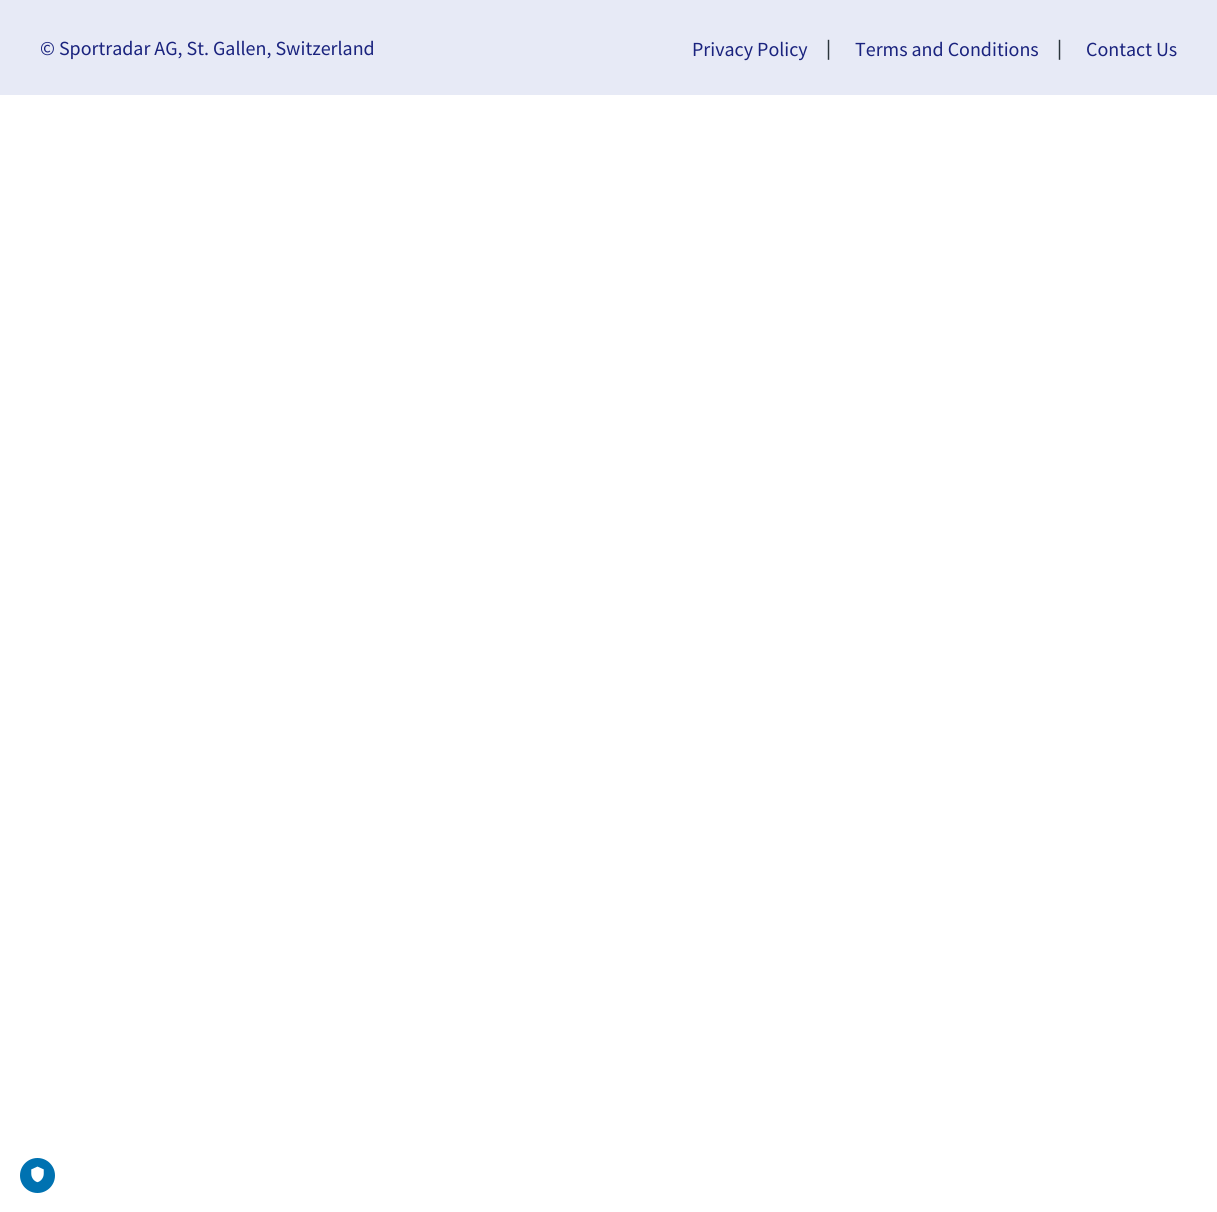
import math
import cairo



def draw_image(context, path, x, y, w, h):
    context.save()
    context.set_source_surface(cairo.ImageSurface.create_from_png(path), x, y)
    context.rectangle(x, y, w, h)
    context.fill()
    context.restore()


def draw(context):
    context.set_source_rgb(1, 1, 1)
    context.paint()
    context.set_source_rgb(231 / 255, 234 / 255, 246 / 255)
    context.rectangle(0, 0, 1217, 95)
    context.fill()
    context.set_source_rgb(0, 114 / 255, 177 / 255)
    context.arc(37.5, 1175.5, 17.5, 0, 2 * math.pi)
    context.fill()
    draw_image(context, "images/1.png", 31, 1166, 13, 17)
    context.select_font_face("Source Sans Pro")
    context.set_font_size(20)
    context.set_source_rgb(26 / 255, 35 / 255, 126 / 255)
    context.move_to(40, 55)
    context.show_text("© Sportradar AG, St. Gallen, Switzerland")
    context.move_to(692, 56)
    context.show_text("Privacy Policy")
    context.select_font_face("Noto Sans")
    context.set_source_rgb(43 / 255, 53 / 255, 59 / 255)
    context.move_to(823, 55)
    context.show_text("|")
    context.select_font_face("Source Sans Pro")
    context.set_source_rgb(26 / 255, 35 / 255, 126 / 255)
    context.move_to(855, 56)
    context.show_text("Terms and Conditions")
    context.select_font_face("Noto Sans")
    context.set_source_rgb(43 / 255, 53 / 255, 59 / 255)
    context.move_to(1054, 55)
    context.show_text("|")
    context.select_font_face("Source Sans Pro")
    context.set_source_rgb(26 / 255, 35 / 255, 126 / 255)
    context.move_to(1086, 56)
    context.show_text("Contact Us")


surface = cairo.ImageSurface(cairo.Format.RGB24, 1217, 1212)
context = cairo.Context(surface)
options = cairo.FontOptions()
options.set_hint_metrics(cairo.HintMetrics.OFF)
options.set_hint_style(cairo.HintStyle.NONE)
context.set_font_options(options)
context.set_miter_limit(4)
draw(context)
surface.write_to_png("out.png")
